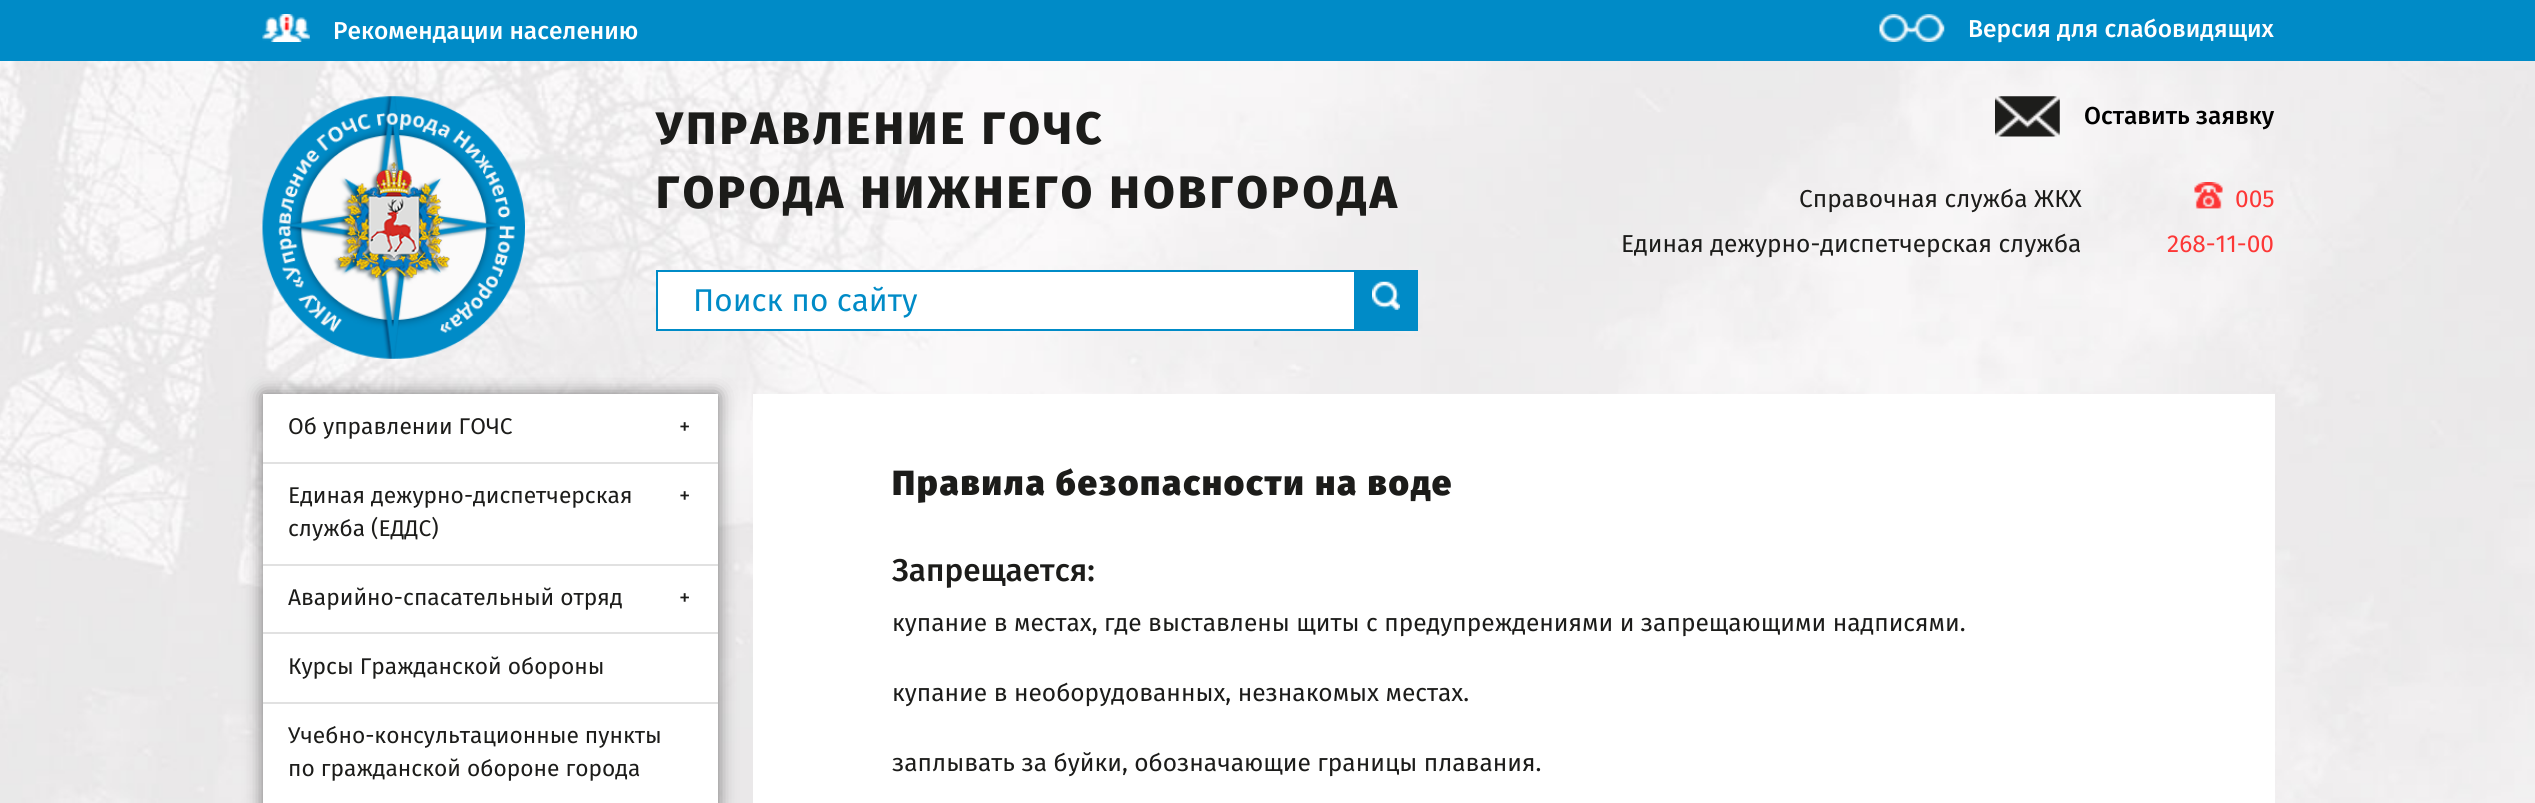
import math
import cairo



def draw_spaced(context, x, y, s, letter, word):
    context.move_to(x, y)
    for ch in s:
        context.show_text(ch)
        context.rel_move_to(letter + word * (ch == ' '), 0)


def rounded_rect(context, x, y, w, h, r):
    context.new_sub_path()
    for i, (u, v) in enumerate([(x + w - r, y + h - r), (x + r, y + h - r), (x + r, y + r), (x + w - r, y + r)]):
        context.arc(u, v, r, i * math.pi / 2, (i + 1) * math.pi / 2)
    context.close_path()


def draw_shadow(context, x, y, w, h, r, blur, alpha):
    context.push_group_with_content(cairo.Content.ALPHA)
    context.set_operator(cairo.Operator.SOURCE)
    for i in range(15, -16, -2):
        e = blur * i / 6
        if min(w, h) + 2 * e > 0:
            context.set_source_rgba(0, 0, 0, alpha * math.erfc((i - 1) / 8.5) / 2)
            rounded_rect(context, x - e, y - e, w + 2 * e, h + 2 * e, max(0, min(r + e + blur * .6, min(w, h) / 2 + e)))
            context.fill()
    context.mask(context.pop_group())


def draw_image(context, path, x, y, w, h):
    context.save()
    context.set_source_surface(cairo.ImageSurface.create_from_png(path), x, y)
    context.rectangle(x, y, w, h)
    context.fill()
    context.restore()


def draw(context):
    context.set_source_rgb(1, 1, 1)
    context.paint()
    draw_image(context, "images/1.png", 0, 61, 2535, 742)
    context.set_source_rgb(0, 139 / 255, 199 / 255)
    context.rectangle(0, 0, 2535, 61)
    context.fill()
    draw_image(context, "images/2.png", 262, 14, 48, 28)
    draw_image(context, "images/3.png", 1879, 14, 66, 28)
    draw_image(context, "images/4.png", 262, 96, 263, 263)
    context.set_source_rgb(1, 1, 1)
    context.rectangle(657, 271, 698, 59)
    context.fill_preserve()
    context.set_source_rgb(0, 139 / 255, 199 / 255)
    context.stroke()
    context.rectangle(1356, 270, 62, 61)
    context.fill()
    draw_image(context, "images/5.png", 1372, 281, 28, 29)
    draw_image(context, "images/6.png", 1995, 96, 65, 41)
    draw_image(context, "images/7.png", 2194, 182, 29, 27)
    context.set_source_rgb(0, 0, 0)
    draw_shadow(context, 263, 394, 455, 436, 0, 9, 0.5)
    context.set_source_rgb(1, 1, 1)
    context.rectangle(263, 394, 455, 409)
    context.fill()
    context.set_source_rgb(225 / 255, 225 / 255, 225 / 255)
    context.rectangle(263, 462, 455, 2)
    context.fill()
    context.rectangle(263, 564, 455, 2)
    context.fill()
    context.rectangle(263, 632, 455, 2)
    context.fill()
    context.rectangle(263, 702, 455, 2)
    context.fill()
    context.set_source_rgb(1, 1, 1)
    context.rectangle(753, 394, 1522, 409)
    context.fill()
    context.select_font_face("Fira Sans Medium")
    context.set_font_size(24.5)
    context.move_to(333, 39)
    context.show_text("Рекомендации населению")
    context.move_to(1968, 37)
    context.show_text("Версия для слабовидящих")
    context.select_font_face("Fira Sans ExtraBold")
    context.set_font_size(45.5)
    context.set_source_rgb(28 / 255, 28 / 255, 26 / 255)
    draw_spaced(context, 656, 144, "УПРАВЛЕНИЕ ГОЧС", 3.5, 0)
    draw_spaced(context, 656, 208, "ГОРОДА НИЖНЕГО НОВГОРОДА", 3.5, 0)
    context.select_font_face("Fira Sans")
    context.set_font_size(31.5)
    context.set_source_rgb(0, 139 / 255, 199 / 255)
    context.move_to(693, 311)
    context.show_text("Поиск по сайту")
    context.select_font_face("Fira Sans Medium")
    context.set_font_size(24.5)
    context.set_source_rgb(0, 0, 0)
    context.move_to(2084, 124)
    context.show_text("Оставить заявку")
    context.select_font_face("Fira Sans")
    context.set_source_rgb(28 / 255, 28 / 255, 26 / 255)
    context.move_to(1799, 207)
    context.show_text("Справочная служба ЖКХ")
    context.set_source_rgb(253 / 255, 55 / 255, 54 / 255)
    context.move_to(2235, 207)
    context.show_text("005")
    context.set_source_rgb(28 / 255, 28 / 255, 26 / 255)
    context.move_to(1621, 252)
    context.show_text("Единая дежурно-диспетчерская служба")
    context.set_source_rgb(253 / 255, 55 / 255, 54 / 255)
    context.move_to(2167, 252)
    context.show_text("268-11-00")
    context.set_font_size(22.75)
    context.set_source_rgb(28 / 255, 28 / 255, 26 / 255)
    context.move_to(288, 434)
    context.show_text("Об управлении ГОЧС")
    context.move_to(679, 434)
    context.show_text("+")
    context.move_to(288, 503)
    context.show_text("Единая дежурно-диспетчерская")
    context.move_to(679, 503)
    context.show_text("+")
    context.move_to(288, 536)
    context.show_text("служба (ЕДДС)")
    context.move_to(288, 605)
    context.show_text("Аварийно-спасательный отряд")
    context.move_to(679, 605)
    context.show_text("+")
    context.move_to(288, 674)
    context.show_text("Курсы Гражданской обороны")
    context.move_to(288, 743)
    context.show_text("Учебно-консультационные пункты")
    context.move_to(288, 776)
    context.show_text("по гражданской обороне города")
    context.select_font_face("Fira Sans Black")
    context.set_font_size(35)
    draw_spaced(context, 892, 495, "Правила безопасности на воде", 1.75, 0)
    context.select_font_face("Fira Sans Medium")
    context.set_font_size(31.5)
    context.move_to(892, 581)
    context.show_text("Запрещается:")
    context.select_font_face("Fira Sans")
    context.set_font_size(24.5)
    context.move_to(892, 631)
    context.show_text("купание в местах, где выставлены щиты с предупреждениями и запрещающими надписями.")
    context.move_to(892, 701)
    context.show_text("купание в необорудованных, незнакомых местах.")
    context.move_to(892, 771)
    context.show_text("заплывать за буйки, обозначающие границы плавания.")


surface = cairo.ImageSurface(cairo.Format.RGB24, 2535, 803)
context = cairo.Context(surface)
options = cairo.FontOptions()
options.set_hint_metrics(cairo.HintMetrics.OFF)
options.set_hint_style(cairo.HintStyle.NONE)
context.set_font_options(options)
context.set_miter_limit(4)
draw(context)
surface.write_to_png("out.png")
